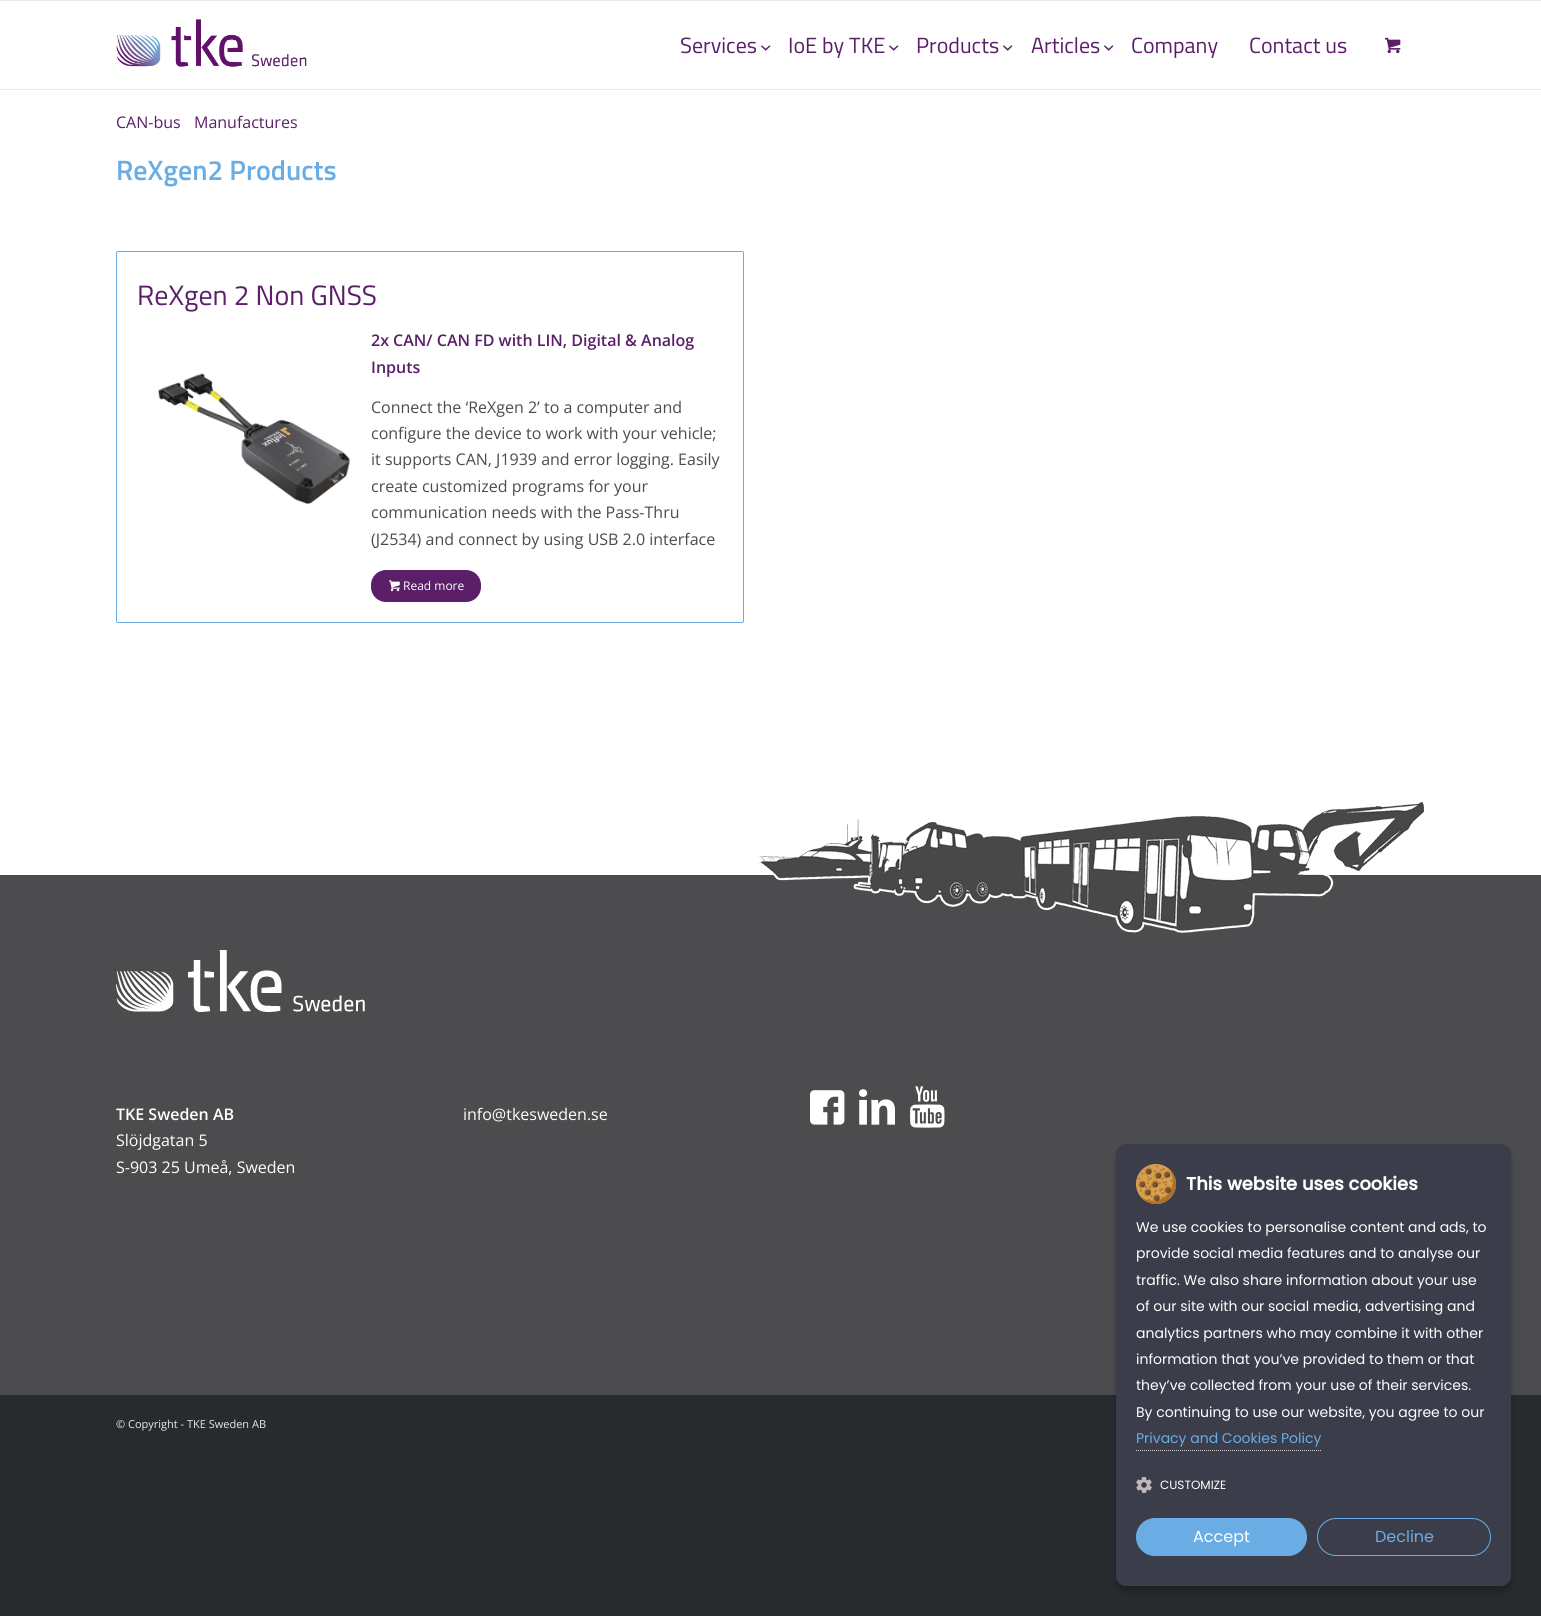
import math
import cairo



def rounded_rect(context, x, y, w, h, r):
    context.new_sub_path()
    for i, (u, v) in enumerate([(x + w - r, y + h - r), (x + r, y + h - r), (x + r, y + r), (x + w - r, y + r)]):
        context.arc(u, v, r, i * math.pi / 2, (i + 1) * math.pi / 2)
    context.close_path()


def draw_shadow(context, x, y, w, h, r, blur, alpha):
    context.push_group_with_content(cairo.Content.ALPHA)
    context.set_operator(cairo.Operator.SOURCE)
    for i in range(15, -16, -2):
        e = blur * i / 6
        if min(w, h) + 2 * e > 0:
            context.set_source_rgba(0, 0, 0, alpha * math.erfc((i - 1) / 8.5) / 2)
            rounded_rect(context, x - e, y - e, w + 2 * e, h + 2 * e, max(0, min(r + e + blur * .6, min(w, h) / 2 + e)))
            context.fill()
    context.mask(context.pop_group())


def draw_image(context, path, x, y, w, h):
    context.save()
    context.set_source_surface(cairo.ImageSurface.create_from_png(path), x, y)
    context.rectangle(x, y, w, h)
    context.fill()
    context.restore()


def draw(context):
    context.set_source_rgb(40 / 255, 43 / 255, 46 / 255)
    context.paint()
    context.set_source_rgb(1, 1, 1)
    context.rectangle(0, 90, 1541, 785)
    context.fill()
    context.rectangle(0, 1, 1541, 87)
    context.fill()
    context.set_source_rgb(235 / 255, 235 / 255, 235 / 255)
    context.rectangle(0, 0, 1541, 1)
    context.fill()
    context.rectangle(0, 89, 1541, 1)
    context.fill()
    draw_image(context, "images/1.png", 116, 19, 191, 48)
    draw_image(context, "images/2.png", 761, 45, 10, 6)
    draw_image(context, "images/2.png", 889, 45, 10, 6)
    draw_image(context, "images/2.png", 1003, 45, 10, 6)
    draw_image(context, "images/2.png", 1104, 45, 10, 6)
    draw_image(context, "images/3.png", 1385, 37, 16, 17)
    context.set_source_rgb(254 / 255, 254 / 255, 254 / 255)
    context.rectangle(0, 88, 1541, 1)
    context.fill()
    rounded_rect(context, 116.5, 251.5, 627, 371, 1.5)
    context.set_source_rgb(106 / 255, 173 / 255, 228 / 255)
    context.set_line_width(1)
    context.stroke()
    draw_image(context, "images/4.png", 158, 373, 193, 131)
    context.set_source_rgb(91 / 255, 31 / 255, 105 / 255)
    rounded_rect(context, 371, 570, 110, 32, 15)
    context.fill()
    draw_image(context, "images/5.png", 389, 580, 11, 12)
    context.set_source_rgb(76 / 255, 76 / 255, 78 / 255)
    context.rectangle(0, 875, 1541, 520)
    context.fill()
    draw_image(context, "images/6.png", 758, 800, 668, 133)
    draw_image(context, "images/7.png", 116, 950, 249, 62)
    draw_image(context, "images/8.png", 810, 1090, 35, 35)
    draw_image(context, "images/9.png", 859, 1089, 36, 36)
    draw_image(context, "images/10.png", 910, 1086, 35, 42)
    context.set_source_rgb(0, 0, 0)
    draw_shadow(context, 1116, 1150, 395, 442, 10, 3, 0.25)
    context.set_source_rgb(59 / 255, 62 / 255, 74 / 255)
    rounded_rect(context, 1116, 1144, 395, 442, 10)
    context.fill()
    draw_image(context, "images/11.png", 1136, 1164, 40, 40)
    context.new_path()
    context.move_to(1136, 1450.5)
    context.line_to(1321, 1450.5)
    context.set_source_rgb(206 / 255, 207 / 255, 210 / 255)
    context.set_dash([1, 1])
    context.stroke()
    draw_image(context, "images/12.png", 1136, 1477, 16, 16)
    context.set_source_rgb(106 / 255, 173 / 255, 228 / 255)
    rounded_rect(context, 1136.5, 1518.5, 170, 37, 18.5)
    context.fill_preserve()
    context.set_dash([])
    context.stroke()
    rounded_rect(context, 1317.5, 1518.5, 173, 37, 18.5)
    context.stroke()
    context.select_font_face("Titillium Web")
    context.set_font_size(22)
    context.set_source_rgb(91 / 255, 31 / 255, 105 / 255)
    context.move_to(680, 53)
    context.show_text("Services")
    context.move_to(788, 53)
    context.show_text("IoE by TKE")
    context.move_to(916, 53)
    context.show_text("Products")
    context.move_to(1031, 53)
    context.show_text("Articles")
    context.move_to(1131, 53)
    context.show_text("Company")
    context.move_to(1249, 53)
    context.show_text("Contact us")
    context.select_font_face("Open Sans")
    context.set_font_size(16)
    context.move_to(116, 128)
    context.show_text("CAN-bus")
    context.move_to(194, 128)
    context.show_text("Manufactures")
    context.select_font_face("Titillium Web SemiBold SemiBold")
    context.set_font_size(28)
    context.set_source_rgb(106 / 255, 173 / 255, 228 / 255)
    context.move_to(116, 180)
    context.show_text("ReXgen2 Products")
    context.select_font_face("Titillium Web")
    context.set_source_rgb(91 / 255, 31 / 255, 105 / 255)
    context.move_to(137, 305)
    context.show_text("ReXgen 2 Non GNSS")
    context.select_font_face("Open Sans SemiBold")
    context.set_font_size(16)
    context.move_to(371, 346)
    context.show_text("2x CAN/ CAN FD with LIN, Digital & Analog")
    context.move_to(371, 373)
    context.show_text("Inputs")
    context.select_font_face("Open Sans")
    context.set_source_rgb(76 / 255, 76 / 255, 78 / 255)
    context.move_to(371, 413)
    context.show_text("Connect the ‘ReXgen 2’ to a computer and")
    context.move_to(371, 439)
    context.show_text("configure the device to work with your vehicle;")
    context.move_to(371, 465)
    context.show_text("it supports CAN, J1939 and error logging. Easily")
    context.move_to(371, 492)
    context.show_text("create customized programs for your")
    context.move_to(371, 518)
    context.show_text("communication needs with the Pass-Thru")
    context.move_to(371, 545)
    context.show_text("(J2534) and connect by using USB 2.0 interface")
    context.set_font_size(12)
    context.set_source_rgb(1, 1, 1)
    context.move_to(403, 590)
    context.show_text("Read more")
    context.select_font_face("Open Sans SemiBold")
    context.set_font_size(16)
    context.move_to(116, 1120)
    context.show_text("TKE Sweden AB")
    context.select_font_face("Open Sans")
    context.move_to(116, 1146)
    context.show_text("Slöjdgatan 5")
    context.move_to(116, 1173)
    context.show_text("S-903 25 Umeå, Sweden")
    context.move_to(463, 1120)
    context.show_text("info@tkesweden.se")
    context.set_font_size(11)
    context.set_source_rgb(232 / 255, 232 / 255, 232 / 255)
    context.move_to(116, 1428)
    context.show_text("© Copyright - TKE Sweden AB")
    context.select_font_face("Poppins", cairo.FontSlant.NORMAL, cairo.FontWeight.BOLD)
    context.set_font_size(18)
    context.set_source_rgb(1, 1, 1)
    context.move_to(1186, 1190)
    context.show_text("This website uses cookies")
    context.select_font_face("Poppins")
    context.set_font_size(14)
    context.move_to(1136, 1232)
    context.show_text("We use cookies to personalise content and ads, to")
    context.move_to(1136, 1258)
    context.show_text("provide social media features and to analyse our")
    context.move_to(1136, 1285)
    context.show_text("traffic. We also share information about your use")
    context.move_to(1136, 1311)
    context.show_text("of our site with our social media, advertising and")
    context.move_to(1136, 1338)
    context.show_text("analytics partners who may combine it with other")
    context.move_to(1136, 1364)
    context.show_text("information that you’ve provided to them or that")
    context.move_to(1136, 1390)
    context.show_text("they’ve collected from your use of their services.")
    context.move_to(1136, 1417)
    context.show_text("By continuing to use our website, you agree to our")
    context.set_source_rgb(106 / 255, 173 / 255, 228 / 255)
    context.move_to(1136, 1443)
    context.show_text("Privacy and Cookies Policy")
    context.set_font_size(12)
    context.set_source_rgb(1, 1, 1)
    context.move_to(1160, 1489)
    context.show_text("CUSTOMIZE")
    context.set_font_size(16)
    context.move_to(1193, 1542)
    context.show_text("Accept")
    context.set_source_rgb(106 / 255, 173 / 255, 228 / 255)
    context.move_to(1375, 1542)
    context.show_text("Decline")


surface = cairo.ImageSurface(cairo.Format.RGB24, 1541, 1616)
context = cairo.Context(surface)
options = cairo.FontOptions()
options.set_hint_metrics(cairo.HintMetrics.OFF)
options.set_hint_style(cairo.HintStyle.NONE)
context.set_font_options(options)
context.set_miter_limit(4)
draw(context)
surface.write_to_png("out.png")
